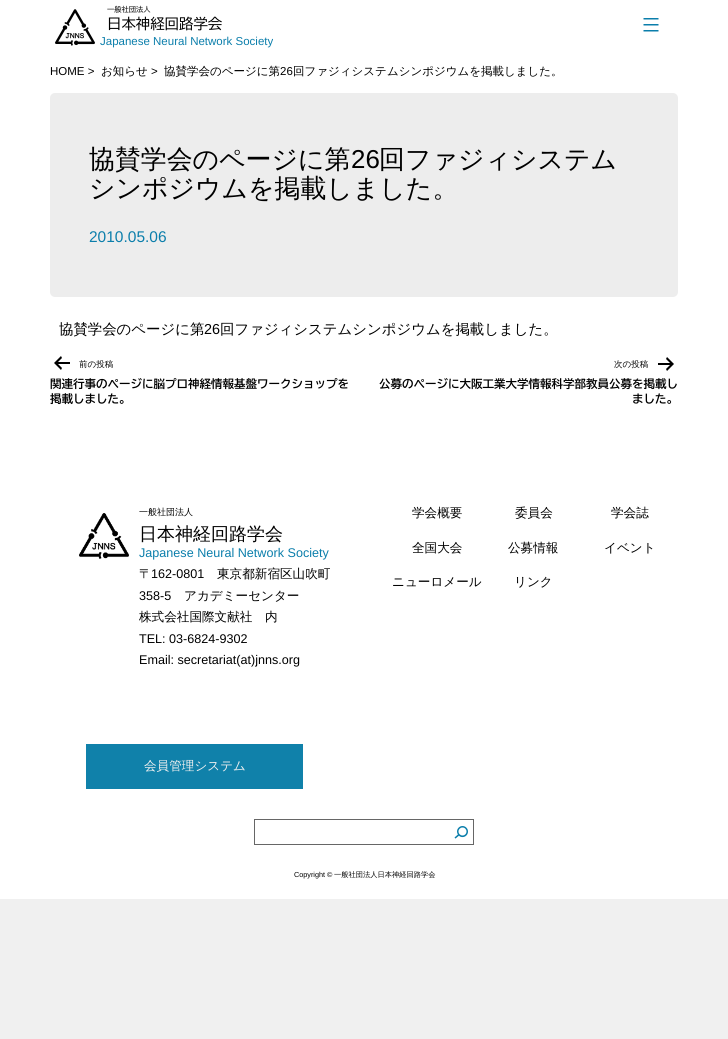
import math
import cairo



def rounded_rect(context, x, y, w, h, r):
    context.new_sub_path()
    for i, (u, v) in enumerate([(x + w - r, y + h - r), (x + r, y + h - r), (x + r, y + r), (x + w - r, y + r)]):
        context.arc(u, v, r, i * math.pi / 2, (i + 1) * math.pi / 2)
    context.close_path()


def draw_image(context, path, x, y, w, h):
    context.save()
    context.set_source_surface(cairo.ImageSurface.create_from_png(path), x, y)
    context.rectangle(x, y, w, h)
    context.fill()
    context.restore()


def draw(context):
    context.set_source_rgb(240 / 255, 240 / 255, 240 / 255)
    context.paint()
    context.set_source_rgb(1, 1, 1)
    context.rectangle(0, 0, 728, 899)
    context.fill()
    draw_image(context, "images/1.png", 55, 9, 40, 37)
    draw_image(context, "images/2.png", 643, 18, 16, 14)
    context.set_source_rgb(237 / 255, 237 / 255, 237 / 255)
    rounded_rect(context, 50, 93, 628, 204, 5)
    context.fill()
    draw_image(context, "images/3.png", 54, 356, 16, 14)
    draw_image(context, "images/4.png", 658, 357, 16, 14)
    draw_image(context, "images/5.png", 79, 513, 50, 46)
    context.set_source_rgb(16 / 255, 129 / 255, 170 / 255)
    context.rectangle(86, 744, 217, 45)
    context.fill()
    context.rectangle(254.5, 819.5, 219, 25)
    context.set_source_rgb(102 / 255, 102 / 255, 102 / 255)
    context.set_line_width(1)
    context.stroke()
    draw_image(context, "images/6.png", 454, 826, 14, 13)
    context.select_font_face("BIZ UDGothic")
    context.set_font_size(7.25)
    context.set_source_rgb(0, 0, 0)
    context.move_to(107, 12)
    context.show_text("一般社団法人")
    context.set_font_size(14.4)
    context.move_to(107, 29)
    context.show_text("日本神経回路学会")
    context.select_font_face("Liberation Sans")
    context.set_font_size(11.5)
    context.set_source_rgb(11 / 255, 126 / 255, 171 / 255)
    context.move_to(100, 45)
    context.show_text("Japanese Neural Network Society")
    context.set_source_rgb(0, 0, 0)
    context.move_to(50, 75)
    context.show_text("HOME >")
    context.select_font_face("WenQuanYi Zen Hei Medium")
    context.move_to(101, 75)
    context.show_text("お知らせ")
    context.select_font_face("Liberation Sans")
    context.move_to(151, 75)
    context.show_text(">")
    context.select_font_face("WenQuanYi Zen Hei Medium")
    context.move_to(164, 75)
    context.show_text("協賛学会のページに第")
    context.select_font_face("Liberation Sans")
    context.move_to(280, 75)
    context.show_text("26")
    context.select_font_face("WenQuanYi Zen Hei Medium")
    context.move_to(293, 75)
    context.show_text("回ファジィシステムシンポジウムを掲載しました。")
    context.set_font_size(25.9)
    context.move_to(89, 168)
    context.show_text("協賛学会のページに第")
    context.select_font_face("Liberation Sans")
    context.move_to(351, 168)
    context.show_text("26")
    context.select_font_face("WenQuanYi Zen Hei Medium")
    context.move_to(379, 168)
    context.show_text("回ファジィシステム")
    context.move_to(89, 197)
    context.show_text("シンポジウムを掲載しました。")
    context.select_font_face("Liberation Sans")
    context.set_font_size(15.5)
    context.set_source_rgb(11 / 255, 126 / 255, 171 / 255)
    context.move_to(89, 242)
    context.show_text("2010.05.06")
    context.select_font_face("WenQuanYi Zen Hei Medium")
    context.set_font_size(14.4)
    context.set_source_rgb(0, 0, 0)
    context.move_to(59, 334)
    context.show_text("協賛学会のページに第")
    context.select_font_face("Liberation Sans")
    context.move_to(204, 334)
    context.show_text("26")
    context.select_font_face("WenQuanYi Zen Hei Medium")
    context.move_to(220, 334)
    context.show_text("回ファジィシステムシンポジウムを掲載しました。")
    context.set_font_size(8.5)
    context.move_to(79, 367)
    context.show_text("前の投稿")
    context.select_font_face("BIZ UDGothic", cairo.FontSlant.NORMAL, cairo.FontWeight.BOLD)
    context.set_font_size(11.5)
    context.move_to(50, 388)
    context.show_text("関連行事のページに脳プロ神経情報基盤ワークショップを")
    context.move_to(50, 403)
    context.show_text("掲載しました。")
    context.select_font_face("WenQuanYi Zen Hei Medium")
    context.set_font_size(8.5)
    context.move_to(614, 367)
    context.show_text("次の投稿")
    context.select_font_face("BIZ UDGothic", cairo.FontSlant.NORMAL, cairo.FontWeight.BOLD)
    context.set_font_size(11.5)
    context.move_to(379, 388)
    context.show_text("公募のページに大阪工業大学情報科学部教員公募を掲載し")
    context.move_to(632, 403)
    context.show_text("ました。")
    context.select_font_face("WenQuanYi Zen Hei Medium")
    context.set_font_size(9)
    context.move_to(139, 515)
    context.show_text("一般社団法人")
    context.set_font_size(18)
    context.move_to(139, 540)
    context.show_text("日本神経回路学会")
    context.select_font_face("Liberation Sans")
    context.set_font_size(12.6)
    context.set_source_rgb(11 / 255, 126 / 255, 171 / 255)
    context.move_to(139, 557)
    context.show_text("Japanese Neural Network Society")
    context.select_font_face("WenQuanYi Zen Hei Medium")
    context.set_source_rgb(0, 0, 0)
    context.move_to(139, 578)
    context.show_text("〒")
    context.select_font_face("Liberation Sans")
    context.move_to(151, 578)
    context.show_text("162-0801")
    context.select_font_face("WenQuanYi Zen Hei Medium")
    context.move_to(217, 578)
    context.show_text("東京都新宿区山吹町")
    context.select_font_face("Liberation Sans")
    context.move_to(139, 600)
    context.show_text("358-5")
    context.select_font_face("WenQuanYi Zen Hei Medium")
    context.move_to(184, 600)
    context.show_text("アカデミーセンター")
    context.move_to(139, 621)
    context.show_text("株式会社国際文献社　内")
    context.select_font_face("Liberation Sans")
    context.move_to(139, 643)
    context.show_text("TEL: 03-6824-9302")
    context.move_to(139, 664)
    context.show_text("Email: secretariat(at)jnns.org")
    context.select_font_face("WenQuanYi Zen Hei Medium")
    context.move_to(412, 517)
    context.show_text("学会概要")
    context.move_to(515, 517)
    context.show_text("委員会")
    context.move_to(611, 517)
    context.show_text("学会誌")
    context.move_to(412, 552)
    context.show_text("全国大会")
    context.move_to(508, 552)
    context.show_text("公募情報")
    context.move_to(604, 552)
    context.show_text("イベント")
    context.move_to(392, 586)
    context.show_text("ニューロメール")
    context.move_to(514, 586)
    context.show_text("リンク")
    context.set_source_rgb(240 / 255, 240 / 255, 240 / 255)
    context.move_to(144, 770)
    context.show_text("会員管理システム")
    context.select_font_face("Liberation Sans")
    context.set_font_size(7.25)
    context.set_source_rgb(0, 0, 0)
    context.move_to(294, 877)
    context.show_text("Copyright ©")
    context.select_font_face("WenQuanYi Zen Hei Medium")
    context.move_to(334, 877)
    context.show_text("一般社団法人日本神経回路学会")


surface = cairo.ImageSurface(cairo.Format.RGB24, 728, 1039)
context = cairo.Context(surface)
options = cairo.FontOptions()
options.set_hint_metrics(cairo.HintMetrics.OFF)
options.set_hint_style(cairo.HintStyle.NONE)
context.set_font_options(options)
context.set_miter_limit(4)
draw(context)
surface.write_to_png("out.png")
